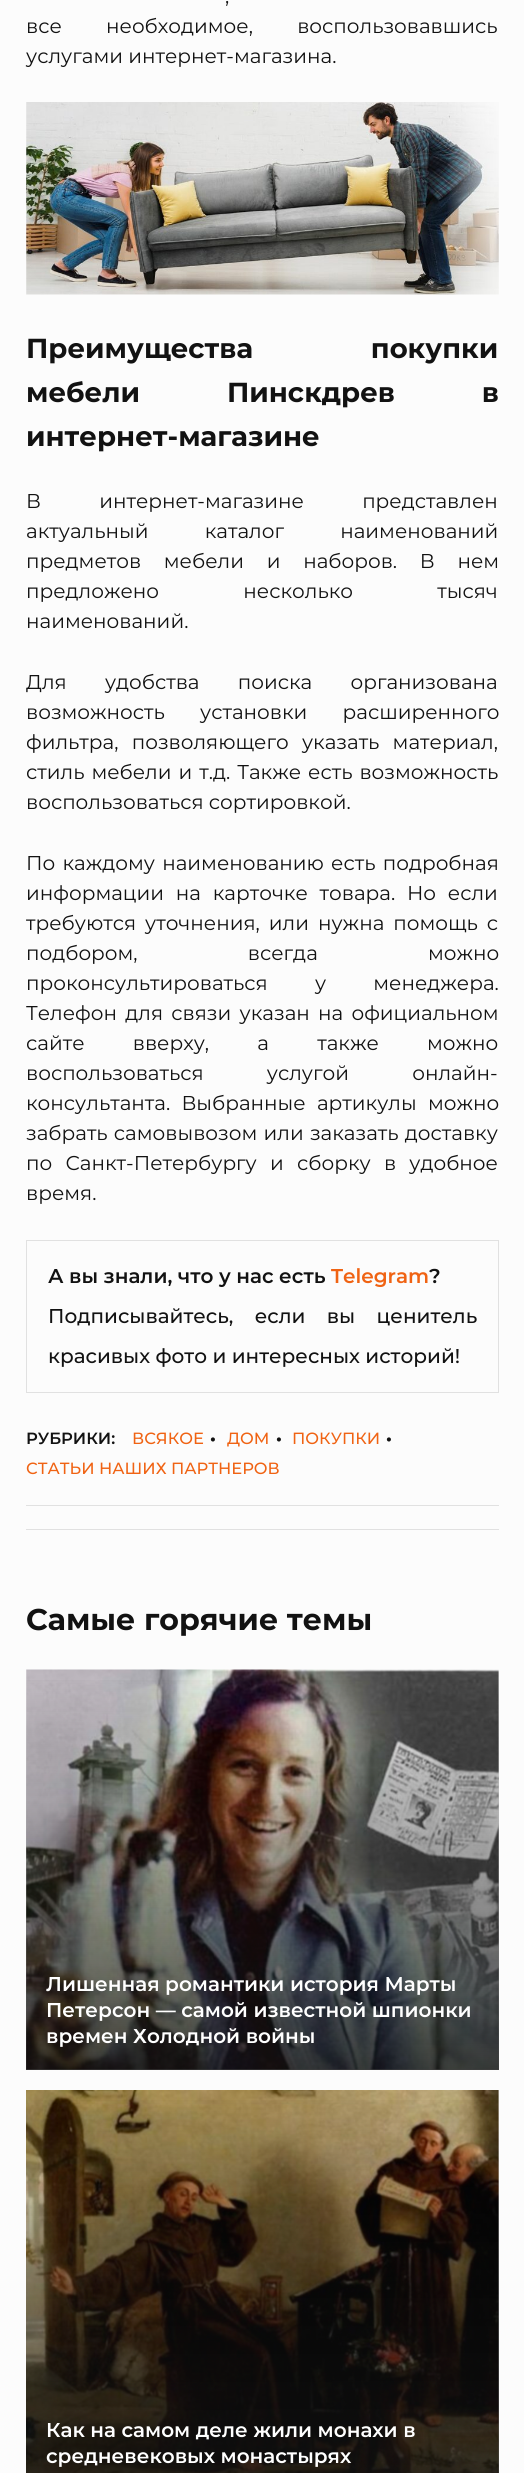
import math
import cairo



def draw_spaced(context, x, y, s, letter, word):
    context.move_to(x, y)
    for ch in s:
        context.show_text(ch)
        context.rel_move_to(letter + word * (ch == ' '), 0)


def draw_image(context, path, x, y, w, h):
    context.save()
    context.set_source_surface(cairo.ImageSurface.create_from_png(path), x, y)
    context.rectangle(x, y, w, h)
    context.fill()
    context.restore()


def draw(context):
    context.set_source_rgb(252 / 255, 252 / 255, 252 / 255)
    context.paint()
    draw_image(context, "images/1.png", 26, 102, 473, 193)
    context.rectangle(26.5, 1240.5, 472, 152)
    context.set_source_rgb(225 / 255, 225 / 255, 225 / 255)
    context.set_line_width(1)
    context.stroke()
    context.rectangle(26, 1505, 473, 1)
    context.fill()
    context.rectangle(26, 1529, 473, 1)
    context.fill()
    draw_image(context, "images/2.png", 26, 1669, 473, 401)
    gradient = cairo.LinearGradient(262, 1670, 263, 2070)
    gradient.add_color_stop_rgba(0, 18 / 255, 18 / 255, 18 / 255, 0)
    gradient.add_color_stop_rgba(1, 18 / 255, 18 / 255, 18 / 255, 0.8)
    context.set_source(gradient)
    context.rectangle(26, 1680, 473, 390)
    context.fill()
    draw_image(context, "images/3.png", 26, 2090, 473, 383)
    gradient = cairo.LinearGradient(262, 2090, 263, 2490)
    gradient.add_color_stop_rgba(0, 18 / 255, 18 / 255, 18 / 255, 0)
    gradient.add_color_stop_rgba(1, 18 / 255, 18 / 255, 18 / 255, 0.8)
    context.set_source(gradient)
    context.rectangle(26, 2100, 473, 373)
    context.fill()
    context.select_font_face("Montserrat")
    context.set_font_size(20)
    context.set_source_rgb(18 / 255, 18 / 255, 18 / 255)
    draw_spaced(context, 225, 3, ",", 0, 9)
    draw_spaced(context, 26, 33, "все необходимое, воспользовавшись", 0, 39)
    context.move_to(26, 63)
    context.show_text("услугами интернет-магазина.")
    context.select_font_face("Montserrat", cairo.FontSlant.NORMAL, cairo.FontWeight.BOLD)
    context.set_font_size(27.5)
    draw_spaced(context, 26, 358, "Преимущества покупки", 0, 110)
    draw_spaced(context, 26, 402, "мебели Пинскдрев в", 0, 79)
    context.move_to(26, 446)
    context.show_text("интернет-магазине")
    context.select_font_face("Montserrat")
    context.set_font_size(20)
    draw_spaced(context, 26, 508, "В интернет-магазине представлен", 0, 53)
    draw_spaced(context, 26, 538, "актуальный каталог наименований", 0, 51)
    draw_spaced(context, 26, 568, "предметов мебели и наборов. В нем", 0, 17.5)
    draw_spaced(context, 26, 598, "предложено несколько тысяч", 0, 79)
    context.move_to(26, 628)
    context.show_text("наименований.")
    draw_spaced(context, 26, 689, "Для удобства поиска организована", 0, 33)
    draw_spaced(context, 26, 719, "возможность установки расширенного", 0, 30)
    draw_spaced(context, 26, 749, "фильтра, позволяющего указать материал,", 0, 8)
    draw_spaced(context, 26, 779, "стиль мебели и т.д. Также есть возможность", 0, 1.75)
    context.move_to(26, 809)
    context.show_text("воспользоваться сортировкой.")
    draw_spaced(context, 26, 870, "По каждому наименованию есть подробная", 0, 2)
    draw_spaced(context, 26, 900, "информации на карточке товара. Но если", 0, 6.5)
    draw_spaced(context, 26, 930, "требуются уточнения, или нужна помощь с", 0, 3.75)
    draw_spaced(context, 26, 960, "подбором, всегда можно", 0, 105)
    draw_spaced(context, 26, 990, "проконсультироваться у менеджера.", 0, 42)
    draw_spaced(context, 26, 1020, "Телефон для связи указан на официальном", 0, 3)
    draw_spaced(context, 26, 1050, "сайте вверху, а также можно", 0, 43)
    draw_spaced(context, 26, 1080, "воспользоваться услугой онлайн-", 0, 58)
    draw_spaced(context, 26, 1110, "консультанта. Выбранные артикулы можно", 0, 6)
    draw_spaced(context, 26, 1140, "забрать самовывозом или заказать доставку", 0, 1)
    draw_spaced(context, 26, 1170, "по Санкт-Петербургу и сборку в удобное", 0, 8)
    context.move_to(26, 1200)
    context.show_text("время.")
    context.select_font_face("Montserrat SemiBold")
    context.move_to(48, 1283)
    context.show_text("А вы знали, что у нас есть")
    context.set_source_rgb(240 / 255, 99 / 255, 19 / 255)
    context.move_to(331, 1283)
    context.show_text("Telegram")
    context.set_source_rgb(18 / 255, 18 / 255, 18 / 255)
    context.move_to(429, 1283)
    context.show_text("?")
    context.select_font_face("Montserrat Medium")
    draw_spaced(context, 48, 1323, "Подписывайтесь, если вы ценитель", 0, 16)
    context.move_to(48, 1363)
    context.show_text("красивых фото и интересных историй!")
    context.select_font_face("Montserrat SemiBold")
    context.set_font_size(16.25)
    context.move_to(26, 1444)
    context.show_text("РУБРИКИ:")
    context.select_font_face("Montserrat Medium")
    context.set_source_rgb(240 / 255, 99 / 255, 19 / 255)
    context.move_to(132, 1444)
    context.show_text("ВСЯКОЕ")
    context.select_font_face("Montserrat", cairo.FontSlant.NORMAL, cairo.FontWeight.BOLD)
    context.set_source_rgb(18 / 255, 18 / 255, 18 / 255)
    context.move_to(210, 1444)
    context.show_text("•")
    context.select_font_face("Montserrat Medium")
    context.set_source_rgb(240 / 255, 99 / 255, 19 / 255)
    context.move_to(227, 1444)
    context.show_text("ДОМ")
    context.select_font_face("Montserrat", cairo.FontSlant.NORMAL, cairo.FontWeight.BOLD)
    context.set_source_rgb(18 / 255, 18 / 255, 18 / 255)
    context.move_to(276, 1444)
    context.show_text("•")
    context.select_font_face("Montserrat Medium")
    context.set_source_rgb(240 / 255, 99 / 255, 19 / 255)
    context.move_to(292, 1444)
    context.show_text("ПОКУПКИ")
    context.select_font_face("Montserrat", cairo.FontSlant.NORMAL, cairo.FontWeight.BOLD)
    context.set_source_rgb(18 / 255, 18 / 255, 18 / 255)
    context.move_to(386, 1444)
    context.show_text("•")
    context.select_font_face("Montserrat Medium")
    context.set_source_rgb(240 / 255, 99 / 255, 19 / 255)
    context.move_to(26, 1474)
    context.show_text("СТАТЬИ НАШИХ ПАРТНЕРОВ")
    context.select_font_face("Montserrat", cairo.FontSlant.NORMAL, cairo.FontWeight.BOLD)
    context.set_font_size(30)
    context.set_source_rgb(18 / 255, 18 / 255, 18 / 255)
    context.move_to(26, 1630)
    context.show_text("Самые горячие темы")
    context.select_font_face("Montserrat SemiBold")
    context.set_font_size(20)
    context.set_source_rgb(1, 1, 1)
    context.move_to(46, 1991)
    context.show_text("Лишенная романтики история Марты")
    context.move_to(46, 2017)
    context.show_text("Петерсон — самой известной шпионки")
    context.move_to(46, 2043)
    context.show_text("времен Холодной войны")
    context.move_to(46, 2437)
    context.show_text("Как на самом деле жили монахи в")
    context.move_to(46, 2463)
    context.show_text("средневековых монастырях")


surface = cairo.ImageSurface(cairo.Format.RGB24, 524, 2473)
context = cairo.Context(surface)
options = cairo.FontOptions()
options.set_hint_metrics(cairo.HintMetrics.OFF)
options.set_hint_style(cairo.HintStyle.NONE)
context.set_font_options(options)
context.set_miter_limit(4)
draw(context)
surface.write_to_png("out.png")
